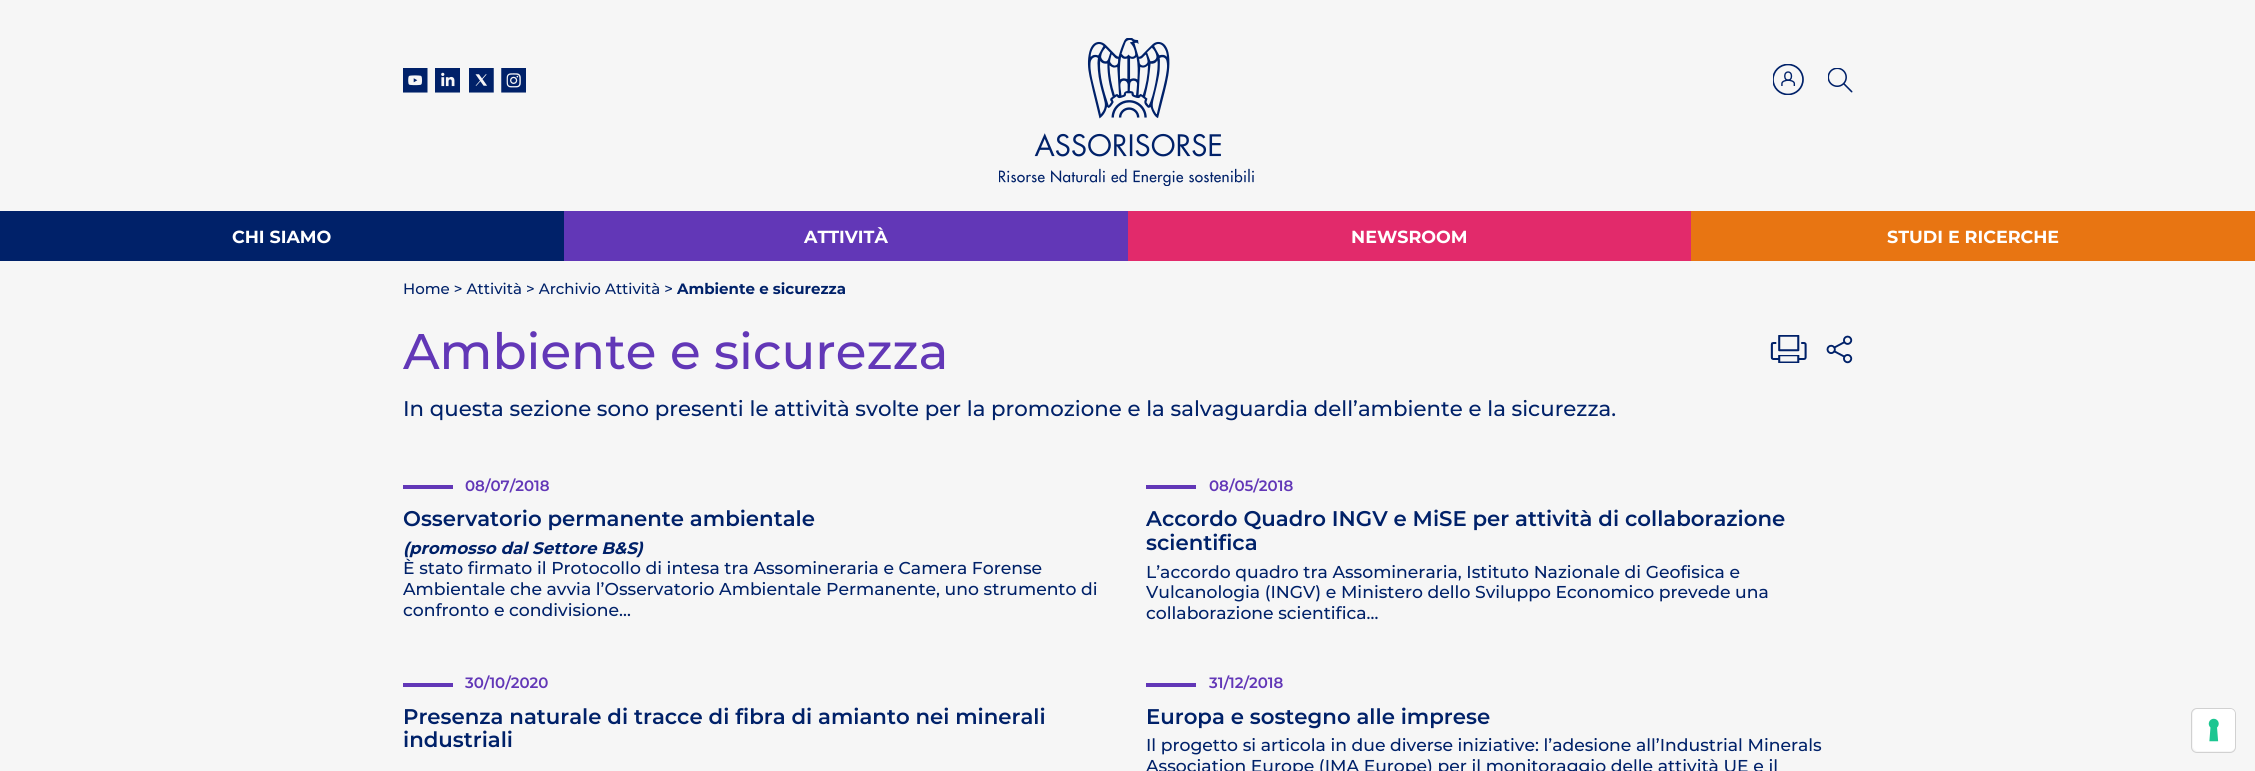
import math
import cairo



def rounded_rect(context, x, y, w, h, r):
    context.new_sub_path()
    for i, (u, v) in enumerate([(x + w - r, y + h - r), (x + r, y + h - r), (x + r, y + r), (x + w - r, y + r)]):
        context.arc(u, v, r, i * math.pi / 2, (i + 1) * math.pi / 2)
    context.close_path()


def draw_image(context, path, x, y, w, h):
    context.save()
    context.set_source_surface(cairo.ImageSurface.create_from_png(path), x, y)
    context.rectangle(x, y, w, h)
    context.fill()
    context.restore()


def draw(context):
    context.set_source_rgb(246 / 255, 246 / 255, 246 / 255)
    context.paint()
    draw_image(context, "images/1.png", 403, 68, 25, 25)
    draw_image(context, "images/2.png", 435, 68, 25, 25)
    draw_image(context, "images/3.png", 469, 68, 25, 25)
    draw_image(context, "images/4.png", 501, 68, 25, 25)
    draw_image(context, "images/5.png", 999, 38, 255, 148)
    draw_image(context, "images/6.png", 1773, 64, 31, 31)
    draw_image(context, "images/7.png", 1828, 68, 25, 25)
    context.set_source_rgb(0, 33 / 255, 105 / 255)
    context.rectangle(0, 211, 564, 50)
    context.fill()
    context.set_source_rgb(98 / 255, 55 / 255, 183 / 255)
    context.rectangle(564, 211, 564, 50)
    context.fill()
    context.set_source_rgb(226 / 255, 42 / 255, 107 / 255)
    context.rectangle(1128, 211, 563, 50)
    context.fill()
    context.set_source_rgb(232 / 255, 117 / 255, 18 / 255)
    context.rectangle(1691, 211, 564, 50)
    context.fill()
    draw_image(context, "images/8.png", 1770, 335, 37, 28)
    draw_image(context, "images/9.png", 1826, 335, 27, 29)
    context.set_source_rgb(98 / 255, 55 / 255, 183 / 255)
    context.rectangle(403, 485, 50, 4)
    context.fill()
    context.rectangle(1146, 485, 50, 4)
    context.fill()
    context.rectangle(403, 683, 50, 4)
    context.fill()
    context.rectangle(1146, 683, 50, 4)
    context.fill()
    rounded_rect(context, 2191.5, 708.5, 44, 44, 5.5)
    context.set_source_rgb(209 / 255, 209 / 255, 209 / 255)
    context.set_line_width(1)
    context.stroke()
    context.set_source_rgb(1, 1, 1)
    rounded_rect(context, 2193, 709, 42, 42, 5)
    context.fill()
    draw_image(context, "images/10.png", 2208, 718, 11, 24)
    context.select_font_face("Montserrat", cairo.FontSlant.NORMAL, cairo.FontWeight.BOLD)
    context.set_font_size(17.5)
    context.move_to(232, 243)
    context.show_text("CHI SIAMO")
    context.move_to(804, 243)
    context.show_text("ATTIVITÀ")
    context.move_to(1351, 243)
    context.show_text("NEWSROOM")
    context.move_to(1887, 243)
    context.show_text("STUDI E RICERCHE")
    context.select_font_face("Montserrat Medium")
    context.set_font_size(15)
    context.set_source_rgb(0, 33 / 255, 105 / 255)
    context.move_to(403, 294)
    context.show_text("Home > Attività > Archivio Attività >")
    context.select_font_face("Montserrat", cairo.FontSlant.NORMAL, cairo.FontWeight.BOLD)
    context.move_to(677, 294)
    context.show_text("Ambiente e sicurezza")
    context.select_font_face("Montserrat Medium")
    context.set_font_size(50)
    context.set_source_rgb(98 / 255, 55 / 255, 183 / 255)
    context.move_to(403, 369)
    context.show_text("Ambiente e sicurezza")
    context.set_font_size(21.25)
    context.set_source_rgb(0, 33 / 255, 105 / 255)
    context.move_to(403, 416)
    context.show_text("In questa sezione sono presenti le attività svolte per la promozione e la salvaguardia dell’ambiente e la sicurezza.")
    context.select_font_face("Montserrat SemiBold")
    context.set_font_size(15)
    context.set_source_rgb(98 / 255, 55 / 255, 183 / 255)
    context.move_to(465, 491)
    context.show_text("08/07/2018")
    context.set_font_size(21.25)
    context.set_source_rgb(0, 33 / 255, 105 / 255)
    context.move_to(403, 526)
    context.show_text("Osservatorio permanente ambientale")
    context.select_font_face("Montserrat", cairo.FontSlant.ITALIC, cairo.FontWeight.BOLD)
    context.set_font_size(16.7)
    context.move_to(403, 554)
    context.show_text("(promosso dal Settore B&S)")
    context.select_font_face("Montserrat Medium")
    context.set_font_size(17.2)
    context.move_to(403, 574)
    context.show_text("È stato firmato il Protocollo di intesa tra Assomineraria e Camera Forense")
    context.move_to(403, 595)
    context.show_text("Ambientale che avvia l’Osservatorio Ambientale Permanente, uno strumento di")
    context.move_to(403, 616)
    context.show_text("confronto e condivisione…")
    context.select_font_face("Montserrat SemiBold")
    context.set_font_size(15)
    context.set_source_rgb(98 / 255, 55 / 255, 183 / 255)
    context.move_to(1209, 491)
    context.show_text("08/05/2018")
    context.set_font_size(21.25)
    context.set_source_rgb(0, 33 / 255, 105 / 255)
    context.move_to(1146, 526)
    context.show_text("Accordo Quadro INGV e MiSE per attività di collaborazione")
    context.move_to(1146, 550)
    context.show_text("scientifica")
    context.select_font_face("Montserrat Medium")
    context.set_font_size(17.2)
    context.move_to(1146, 578)
    context.show_text("L’accordo quadro tra Assomineraria, Istituto Nazionale di Geofisica e")
    context.move_to(1146, 598)
    context.show_text("Vulcanologia (INGV) e Ministero dello Sviluppo Economico prevede una")
    context.move_to(1146, 619)
    context.show_text("collaborazione scientifica…")
    context.select_font_face("Montserrat SemiBold")
    context.set_font_size(15)
    context.set_source_rgb(98 / 255, 55 / 255, 183 / 255)
    context.move_to(465, 688)
    context.show_text("30/10/2020")
    context.set_font_size(21.25)
    context.set_source_rgb(0, 33 / 255, 105 / 255)
    context.move_to(403, 724)
    context.show_text("Presenza naturale di tracce di fibra di amianto nei minerali")
    context.move_to(403, 747)
    context.show_text("industriali")
    context.set_font_size(15)
    context.set_source_rgb(98 / 255, 55 / 255, 183 / 255)
    context.move_to(1209, 688)
    context.show_text("31/12/2018")
    context.set_font_size(21.25)
    context.set_source_rgb(0, 33 / 255, 105 / 255)
    context.move_to(1146, 724)
    context.show_text("Europa e sostegno alle imprese")
    context.select_font_face("Montserrat Medium")
    context.set_font_size(17.2)
    context.move_to(1146, 751)
    context.show_text("Il progetto si articola in due diverse iniziative: l’adesione all’Industrial Minerals")
    context.move_to(1146, 772)
    context.show_text("Association Europe (IMA Europe) per il monitoraggio delle attività UE e il")


surface = cairo.ImageSurface(cairo.Format.RGB24, 2255, 771)
context = cairo.Context(surface)
options = cairo.FontOptions()
options.set_hint_metrics(cairo.HintMetrics.OFF)
options.set_hint_style(cairo.HintStyle.NONE)
context.set_font_options(options)
context.set_miter_limit(4)
draw(context)
surface.write_to_png("out.png")
